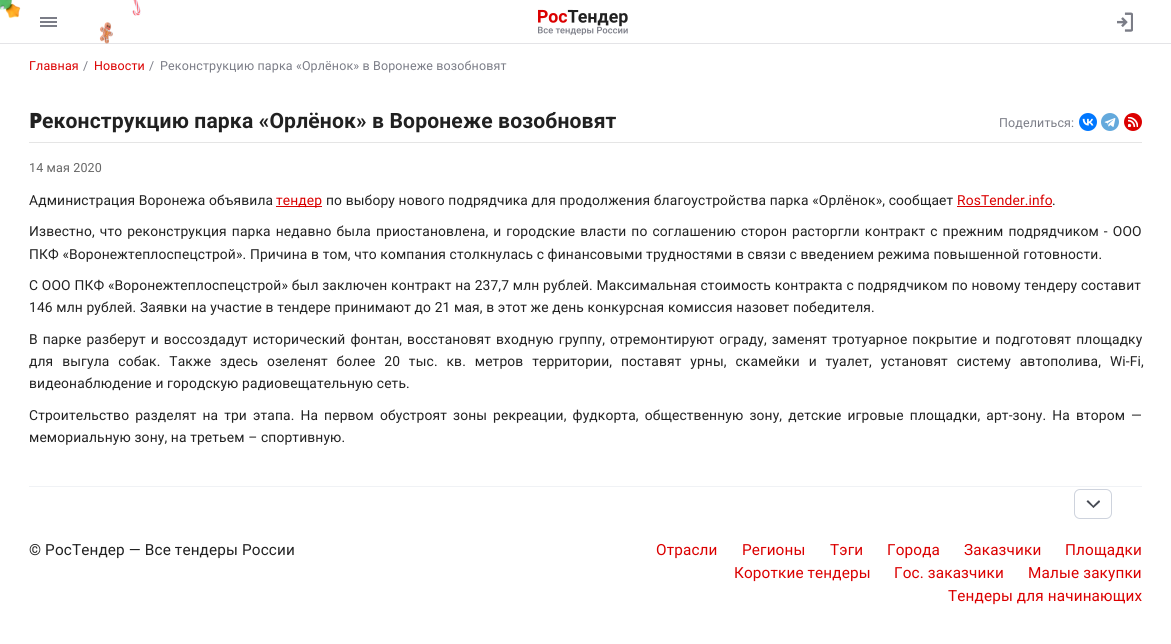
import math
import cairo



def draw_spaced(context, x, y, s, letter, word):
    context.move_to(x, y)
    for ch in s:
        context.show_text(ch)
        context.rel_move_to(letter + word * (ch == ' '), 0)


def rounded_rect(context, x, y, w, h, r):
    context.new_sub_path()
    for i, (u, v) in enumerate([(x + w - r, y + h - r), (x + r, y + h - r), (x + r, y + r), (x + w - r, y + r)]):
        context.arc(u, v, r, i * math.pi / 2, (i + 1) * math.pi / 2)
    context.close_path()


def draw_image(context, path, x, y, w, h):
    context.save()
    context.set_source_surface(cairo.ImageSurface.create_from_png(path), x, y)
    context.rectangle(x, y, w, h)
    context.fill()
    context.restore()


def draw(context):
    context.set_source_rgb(1, 1, 1)
    context.paint()
    draw_image(context, "images/1.png", 0, 0, 141, 44)
    context.set_source_rgb(123 / 255, 125 / 255, 135 / 255)
    context.rectangle(40, 17, 17, 2)
    context.fill()
    context.rectangle(40, 21, 17, 2)
    context.fill()
    context.rectangle(40, 25, 17, 2)
    context.fill()
    draw_image(context, "images/2.png", 538, 9, 90, 26)
    draw_image(context, "images/3.png", 1117, 12, 16, 20)
    context.set_source_rgba(164 / 255, 166 / 255, 173 / 255, 0.3)
    context.rectangle(0, 43, 1171, 1)
    context.fill()
    context.set_source_rgb(229 / 255, 229 / 255, 229 / 255)
    context.rectangle(29, 142, 1113, 1)
    context.fill()
    context.set_source_rgb(0, 119 / 255, 1)
    context.arc(1088, 122, 9, 0, 2 * math.pi)
    context.fill()
    draw_image(context, "images/4.png", 1082, 118, 12, 8)
    context.set_source_rgb(100 / 255, 169 / 255, 220 / 255)
    context.arc(1110, 122, 9, 0, 2 * math.pi)
    context.fill()
    draw_image(context, "images/5.png", 1104, 118, 12, 9)
    context.set_source_rgb(219 / 255, 0, 0)
    context.arc(1133, 122, 9, 0, 2 * math.pi)
    context.fill()
    draw_image(context, "images/6.png", 1128, 117, 10, 10)
    context.rectangle(276, 206, 46, 1)
    context.fill()
    context.rectangle(957, 206, 95, 1)
    context.fill()
    context.set_source_rgb(240 / 255, 242 / 255, 245 / 255)
    context.rectangle(29, 486, 1113, 1)
    context.fill()
    rounded_rect(context, 1074.5, 489.5, 37, 29, 5.5)
    context.set_source_rgb(206 / 255, 211 / 255, 221 / 255)
    context.set_line_width(1)
    context.stroke()
    context.set_source_rgb(70 / 255, 74 / 255, 83 / 255)
    context.new_path()
    context.move_to(1093, 506)
    context.line_to(1098.5, 500.5)
    context.curve_to(1099.5, 500, 1100, 501, 1100, 502)
    context.line_to(1094, 507.5)
    context.curve_to(1093.5, 508.5, 1092, 507, 1093, 506)
    context.close_path()
    context.fill()
    context.new_path()
    context.move_to(1088.5, 500.5)
    context.line_to(1094, 506.5)
    context.curve_to(1094.5, 507, 1093.5, 508, 1093, 507.5)
    context.line_to(1087, 502)
    context.curve_to(1086, 501, 1087.5, 500, 1088.5, 500.5)
    context.close_path()
    context.fill()
    context.select_font_face("Roboto")
    context.set_font_size(12.45)
    context.set_source_rgb(219 / 255, 0, 0)
    draw_spaced(context, 29, 70, "Главная", 0.15, 0)
    context.set_source_rgb(123 / 255, 125 / 255, 135 / 255)
    draw_spaced(context, 83, 70, "/", 0.15, 0)
    context.set_source_rgb(219 / 255, 0, 0)
    draw_spaced(context, 94, 70, "Новости", 0.15, 0)
    context.set_source_rgb(123 / 255, 125 / 255, 135 / 255)
    draw_spaced(context, 149, 70, "/", 0.15, 0)
    draw_spaced(context, 160, 70, "Реконструкцию парка «Орлёнок» в Воронеже возобновят", 0.15, 0)
    context.select_font_face("Noto Sans Black")
    context.set_font_size(21.1)
    context.set_source_rgb(33 / 255, 33 / 255, 33 / 255)
    draw_spaced(context, 29, 128, "Р", 0.15, 0)
    context.select_font_face("Roboto", cairo.FontSlant.NORMAL, cairo.FontWeight.BOLD)
    draw_spaced(context, 42, 128, "еконструкцию парка «Орлёнок» в Воронеже возобновят", 0.15, 0)
    context.select_font_face("Roboto")
    context.set_font_size(12.45)
    context.set_source_rgb(123 / 255, 125 / 255, 135 / 255)
    draw_spaced(context, 999, 127, "Поделиться:", 0.15, 0)
    context.set_font_size(12.5)
    context.set_source_rgb(102 / 255, 102 / 255, 102 / 255)
    draw_spaced(context, 29, 172, "14 мая 2020", 0.15, 0)
    context.set_font_size(13.8)
    context.set_source_rgb(33 / 255, 33 / 255, 33 / 255)
    draw_spaced(context, 29, 205, "Администрация Воронежа объявила", 0.15, 0)
    context.set_source_rgb(219 / 255, 0, 0)
    draw_spaced(context, 276, 205, "тендер", 0.15, 0)
    context.set_source_rgb(33 / 255, 33 / 255, 33 / 255)
    draw_spaced(context, 326, 205, "по выбору нового подрядчика для продолжения благоустройства парка «Орлёнок», сообщает", 0.15, 0)
    context.set_source_rgb(219 / 255, 0, 0)
    draw_spaced(context, 957, 205, "RosTender.info", 0.15, 0)
    context.set_source_rgb(33 / 255, 33 / 255, 33 / 255)
    draw_spaced(context, 1052, 205, ".", 0.15, 0)
    draw_spaced(context, 29, 236, "Известно, что реконструкция парка недавно была приостановлена, и городские власти по соглашению сторон расторгли контракт с прежним подрядчиком - ООО", 0.15, 1.4)
    draw_spaced(context, 29, 259, "ПКФ «Воронежтеплоспецстрой». Причина в том, что компания столкнулась с финансовыми трудностями в связи с введением режима повышенной готовности.", 0.15, 0)
    draw_spaced(context, 29, 290, "С ООО ПКФ «Воронежтеплоспецстрой» был заключен контракт на 237,7 млн рублей. Максимальная стоимость контракта с подрядчиком по новому тендеру составит", 0.15, 0.1)
    draw_spaced(context, 29, 312, "146 млн рублей. Заявки на участие в тендере принимают до 21 мая, в этот же день конкурсная комиссия назовет победителя.", 0.15, 0)
    draw_spaced(context, 29, 344, "В парке разберут и воссоздадут исторический фонтан, восстановят входную группу, отремонтируют ограду, заменят тротуарное покрытие и подготовят площадку", 0.15, 1.4)
    draw_spaced(context, 29, 366, "для выгула собак. Также здесь озеленят более 20 тыс. кв. метров территории, поставят урны, скамейки и туалет, установят систему автополива, Wi-Fi,", 0.15, 5.25)
    draw_spaced(context, 29, 388, "видеонаблюдение и городскую радиовещательную сеть.", 0.15, 0)
    draw_spaced(context, 29, 420, "Строительство разделят на три этапа. На первом обустроят зоны рекреации, фудкорта, общественную зону, детские игровые площадки, арт-зону. На втором —", 0.15, 2.4)
    draw_spaced(context, 29, 442, "мемориальную зону, на третьем – спортивную.", 0.15, 0)
    context.set_font_size(15.3)
    draw_spaced(context, 29, 555, "© РосТендер — Все тендеры России", 0.15, 0)
    context.set_source_rgb(219 / 255, 0, 0)
    draw_spaced(context, 656, 555, "Отрасли", 0.15, 0)
    draw_spaced(context, 742, 555, "Регионы", 0.15, 0)
    draw_spaced(context, 830, 555, "Тэги", 0.15, 0)
    draw_spaced(context, 887, 555, "Города", 0.15, 0)
    draw_spaced(context, 964, 555, "Заказчики", 0.15, 0)
    draw_spaced(context, 1065, 555, "Площадки", 0.15, 0)
    draw_spaced(context, 734, 578, "Короткие тендеры", 0.15, 0)
    draw_spaced(context, 894, 578, "Гос. заказчики", 0.15, 0)
    draw_spaced(context, 1028, 578, "Малые закупки", 0.15, 0)
    draw_spaced(context, 948, 601, "Тендеры для начинающих", 0.15, 0)


surface = cairo.ImageSurface(cairo.Format.RGB24, 1171, 644)
context = cairo.Context(surface)
options = cairo.FontOptions()
options.set_hint_metrics(cairo.HintMetrics.OFF)
options.set_hint_style(cairo.HintStyle.NONE)
context.set_font_options(options)
context.set_miter_limit(4)
draw(context)
surface.write_to_png("out.png")
